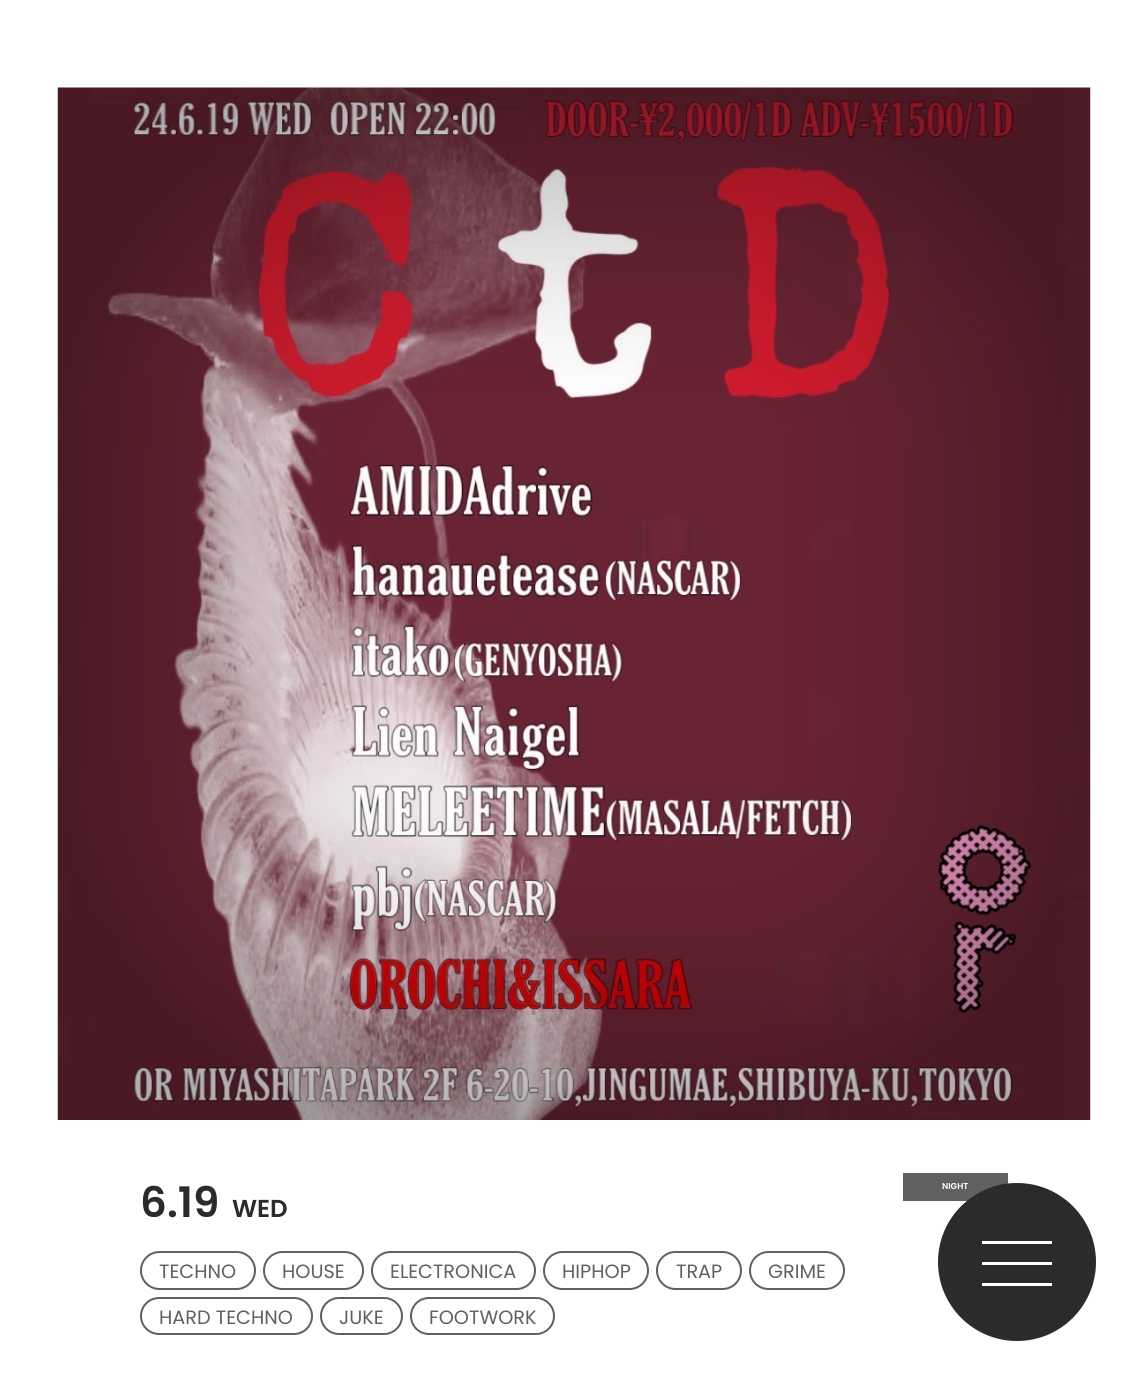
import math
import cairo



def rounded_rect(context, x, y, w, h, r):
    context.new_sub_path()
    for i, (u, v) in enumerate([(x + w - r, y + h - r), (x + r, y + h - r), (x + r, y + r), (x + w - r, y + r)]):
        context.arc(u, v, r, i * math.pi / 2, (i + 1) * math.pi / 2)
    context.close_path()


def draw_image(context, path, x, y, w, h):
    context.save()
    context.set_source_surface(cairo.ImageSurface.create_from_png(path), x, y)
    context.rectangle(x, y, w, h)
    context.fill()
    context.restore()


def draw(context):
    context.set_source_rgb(1, 1, 1)
    context.paint()
    draw_image(context, "images/1.png", 57, 87, 1034, 1033)
    context.set_source_rgb(96 / 255, 96 / 255, 96 / 255)
    context.rectangle(903, 1173, 105, 28)
    context.fill()
    rounded_rect(context, 141, 1252, 114, 37, 18.5)
    context.stroke()
    rounded_rect(context, 264, 1252, 99, 37, 18.5)
    context.stroke()
    rounded_rect(context, 372, 1252, 163, 37, 18.5)
    context.stroke()
    rounded_rect(context, 544, 1252, 104, 37, 18.5)
    context.stroke()
    rounded_rect(context, 657, 1252, 84, 37, 18.5)
    context.stroke()
    rounded_rect(context, 750, 1252, 94, 37, 18.5)
    context.stroke()
    rounded_rect(context, 141, 1298, 171, 36, 18)
    context.stroke()
    rounded_rect(context, 321, 1298, 81, 36, 18)
    context.stroke()
    rounded_rect(context, 411, 1298, 143, 36, 18)
    context.stroke()
    context.select_font_face("Poppins SemiBold")
    context.set_font_size(42)
    context.set_source_rgb(43 / 255, 43 / 255, 43 / 255)
    context.move_to(140, 1217)
    context.show_text("6.19")
    context.set_font_size(24.5)
    context.move_to(232, 1217)
    context.show_text("WED")
    context.set_font_size(8.5)
    context.set_source_rgb(1, 1, 1)
    context.move_to(942, 1189)
    context.show_text("NIGHT")
    context.select_font_face("Poppins")
    context.set_font_size(19.25)
    context.set_source_rgb(96 / 255, 96 / 255, 96 / 255)
    context.move_to(159, 1278)
    context.show_text("TECHNO")
    context.move_to(282, 1278)
    context.show_text("HOUSE")
    context.move_to(390, 1278)
    context.show_text("ELECTRONICA")
    context.move_to(562, 1278)
    context.show_text("HIPHOP")
    context.move_to(676, 1278)
    context.show_text("TRAP")
    context.move_to(768, 1278)
    context.show_text("GRIME")
    context.move_to(159, 1324)
    context.show_text("HARD TECHNO")
    context.move_to(339, 1324)
    context.show_text("JUKE")
    context.move_to(429, 1324)
    context.show_text("FOOTWORK")
    context.set_source_rgb(43 / 255, 43 / 255, 43 / 255)
    context.new_path()
    context.arc(1017, 1262, 79, 0, 2 * math.pi)
    context.fill()
    context.set_source_rgb(1, 1, 1)
    context.rectangle(982, 1241, 70, 3)
    context.fill()
    context.rectangle(982, 1262, 70, 3)
    context.fill()
    context.rectangle(982, 1283, 70, 3)
    context.fill()


surface = cairo.ImageSurface(cairo.Format.RGB24, 1147, 1392)
context = cairo.Context(surface)
options = cairo.FontOptions()
options.set_hint_metrics(cairo.HintMetrics.OFF)
options.set_hint_style(cairo.HintStyle.NONE)
context.set_font_options(options)
context.set_miter_limit(4)
draw(context)
surface.write_to_png("out.png")
